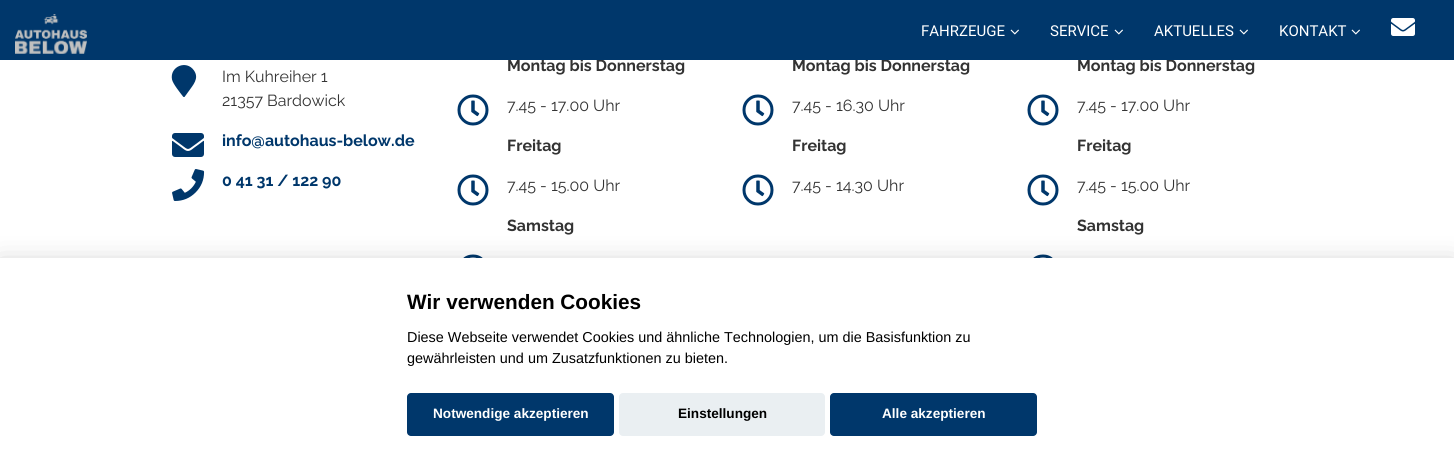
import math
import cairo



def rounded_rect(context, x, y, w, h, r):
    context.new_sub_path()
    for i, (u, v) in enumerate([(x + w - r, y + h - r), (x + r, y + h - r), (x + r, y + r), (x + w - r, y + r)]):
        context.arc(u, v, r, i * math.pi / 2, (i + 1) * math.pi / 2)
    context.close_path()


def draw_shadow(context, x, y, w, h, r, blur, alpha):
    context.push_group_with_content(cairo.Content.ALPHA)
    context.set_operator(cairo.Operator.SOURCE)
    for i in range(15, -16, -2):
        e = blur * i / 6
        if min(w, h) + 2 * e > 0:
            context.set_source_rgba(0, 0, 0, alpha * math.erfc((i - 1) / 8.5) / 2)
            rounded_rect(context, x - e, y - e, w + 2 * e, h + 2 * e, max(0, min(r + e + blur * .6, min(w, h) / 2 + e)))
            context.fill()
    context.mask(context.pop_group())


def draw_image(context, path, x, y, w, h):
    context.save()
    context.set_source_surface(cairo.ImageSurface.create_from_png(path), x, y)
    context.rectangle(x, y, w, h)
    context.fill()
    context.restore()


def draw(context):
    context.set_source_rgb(1, 1, 1)
    context.paint()
    context.set_source_rgb(0, 55 / 255, 107 / 255)
    context.new_path()
    context.move_to(183, 96.5)
    context.curve_to(180, 92.5, 173, 84, 172, 79.5)
    context.curve_to(169.5, 66.5, 186.5, 59.5, 194, 70.5)
    context.curve_to(199.5, 78.5, 193, 85, 188.5, 91.5)
    context.line_to(184.5, 97)
    context.curve_to(184, 97, 183, 97, 183, 96.5)
    context.close_path()
    context.fill()
    draw_image(context, "images/4.png", 172, 133, 32, 24)
    draw_image(context, "images/5.png", 172, 169, 33, 32)
    draw_image(context, "images/6.png", 457, 94, 32, 32)
    draw_image(context, "images/6.png", 457, 174, 32, 32)
    draw_image(context, "images/7.png", 463, 254, 20, 4)
    draw_image(context, "images/6.png", 742, 94, 32, 32)
    draw_image(context, "images/6.png", 742, 174, 32, 32)
    draw_image(context, "images/6.png", 1027, 94, 32, 32)
    draw_image(context, "images/6.png", 1027, 174, 32, 32)
    draw_image(context, "images/7.png", 1033, 254, 20, 4)
    context.set_source_rgb(2 / 255, 2 / 255, 3 / 255)
    draw_shadow(context, 0, 268, 1454, 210, 0, 15, 0.28)
    context.set_source_rgb(1, 1, 1)
    context.rectangle(0, 258, 1454, 210)
    context.fill()
    context.set_source_rgb(0, 55 / 255, 107 / 255)
    rounded_rect(context, 407, 393, 207, 43, 4)
    context.fill()
    context.set_source_rgb(234 / 255, 239 / 255, 242 / 255)
    rounded_rect(context, 619, 393, 206, 43, 4)
    context.fill()
    context.set_source_rgb(0, 55 / 255, 107 / 255)
    rounded_rect(context, 830, 393, 207, 43, 4)
    context.fill()
    context.select_font_face("Raleway")
    context.set_font_size(16)
    context.set_source_rgb(51 / 255, 51 / 255, 51 / 255)
    context.move_to(222, 82)
    context.show_text("Im Kuhreiher 1")
    context.move_to(222, 106)
    context.show_text("21357 Bardowick")
    context.select_font_face("Raleway", cairo.FontSlant.NORMAL, cairo.FontWeight.BOLD)
    context.set_source_rgb(0, 55 / 255, 107 / 255)
    context.move_to(222, 146)
    context.show_text("info@autohaus-below.de")
    context.move_to(222, 186)
    context.show_text("0 41 31 / 122 90")
    context.set_source_rgb(51 / 255, 51 / 255, 51 / 255)
    context.move_to(507, 71)
    context.show_text("Montag bis Donnerstag")
    context.select_font_face("Raleway")
    context.move_to(507, 111)
    context.show_text("7.45 - 17.00 Uhr")
    context.select_font_face("Raleway", cairo.FontSlant.NORMAL, cairo.FontWeight.BOLD)
    context.move_to(507, 151)
    context.show_text("Freitag")
    context.select_font_face("Raleway")
    context.move_to(507, 191)
    context.show_text("7.45 - 15.00 Uhr")
    context.select_font_face("Raleway", cairo.FontSlant.NORMAL, cairo.FontWeight.BOLD)
    context.move_to(507, 231)
    context.show_text("Samstag")
    context.move_to(792, 71)
    context.show_text("Montag bis Donnerstag")
    context.select_font_face("Raleway")
    context.move_to(792, 111)
    context.show_text("7.45 - 16.30 Uhr")
    context.select_font_face("Raleway", cairo.FontSlant.NORMAL, cairo.FontWeight.BOLD)
    context.move_to(792, 151)
    context.show_text("Freitag")
    context.select_font_face("Raleway")
    context.move_to(792, 191)
    context.show_text("7.45 - 14.30 Uhr")
    context.select_font_face("Raleway", cairo.FontSlant.NORMAL, cairo.FontWeight.BOLD)
    context.move_to(1077, 71)
    context.show_text("Montag bis Donnerstag")
    context.set_source_rgb(0, 55 / 255, 107 / 255)
    context.rectangle(0, 0, 1454, 60)
    context.fill()
    draw_image(context, "images/2.png", 1351, 29, 9, 6)
    context.select_font_face("Roboto")
    context.set_font_size(15)
    context.set_source_rgb(1, 1, 1)
    context.move_to(1279, 36)
    context.show_text("KONTAKT")
    draw_image(context, "images/2.png", 1239, 29, 9, 6)
    context.move_to(1154, 36)
    context.show_text("AKTUELLES")
    draw_image(context, "images/2.png", 1114, 29, 9, 6)
    context.move_to(1050, 36)
    context.show_text("SERVICE")
    draw_image(context, "images/2.png", 1010, 29, 9, 6)
    context.move_to(921, 36)
    context.show_text("FAHRZEUGE")
    draw_image(context, "images/3.png", 1391, 18, 24, 18)
    draw_image(context, "images/1.png", 15, 14, 72, 40)
    context.select_font_face("Raleway")
    context.set_font_size(16)
    context.set_source_rgb(51 / 255, 51 / 255, 51 / 255)
    context.move_to(1077, 111)
    context.show_text("7.45 - 17.00 Uhr")
    context.select_font_face("Raleway", cairo.FontSlant.NORMAL, cairo.FontWeight.BOLD)
    context.move_to(1077, 151)
    context.show_text("Freitag")
    context.select_font_face("Raleway")
    context.move_to(1077, 191)
    context.show_text("7.45 - 15.00 Uhr")
    context.select_font_face("Raleway", cairo.FontSlant.NORMAL, cairo.FontWeight.BOLD)
    context.move_to(1077, 231)
    context.show_text("Samstag")
    context.select_font_face("Liberation Sans", cairo.FontSlant.NORMAL, cairo.FontWeight.BOLD)
    context.set_font_size(20.75)
    context.set_source_rgb(0, 0, 0)
    context.move_to(407, 309)
    context.show_text("Wir verwenden Cookies")
    context.select_font_face("Liberation Sans")
    context.set_font_size(14.4)
    context.move_to(407, 342)
    context.show_text("Diese Webseite verwendet Cookies und ähnliche Technologien, um die Basisfunktion zu")
    context.move_to(407, 363)
    context.show_text("gewährleisten und um Zusatzfunktionen zu bieten.")
    context.select_font_face("Liberation Sans", cairo.FontSlant.NORMAL, cairo.FontWeight.BOLD)
    context.set_font_size(13.6)
    context.set_source_rgb(1, 1, 1)
    context.move_to(433, 418)
    context.show_text("Notwendige akzeptieren")
    context.set_source_rgb(0, 0, 0)
    context.move_to(678, 418)
    context.show_text("Einstellungen")
    context.set_source_rgb(1, 1, 1)
    context.move_to(882, 418)
    context.show_text("Alle akzeptieren")


surface = cairo.ImageSurface(cairo.Format.RGB24, 1454, 468)
context = cairo.Context(surface)
options = cairo.FontOptions()
options.set_hint_metrics(cairo.HintMetrics.OFF)
options.set_hint_style(cairo.HintStyle.NONE)
context.set_font_options(options)
context.set_miter_limit(4)
draw(context)
surface.write_to_png("out.png")
